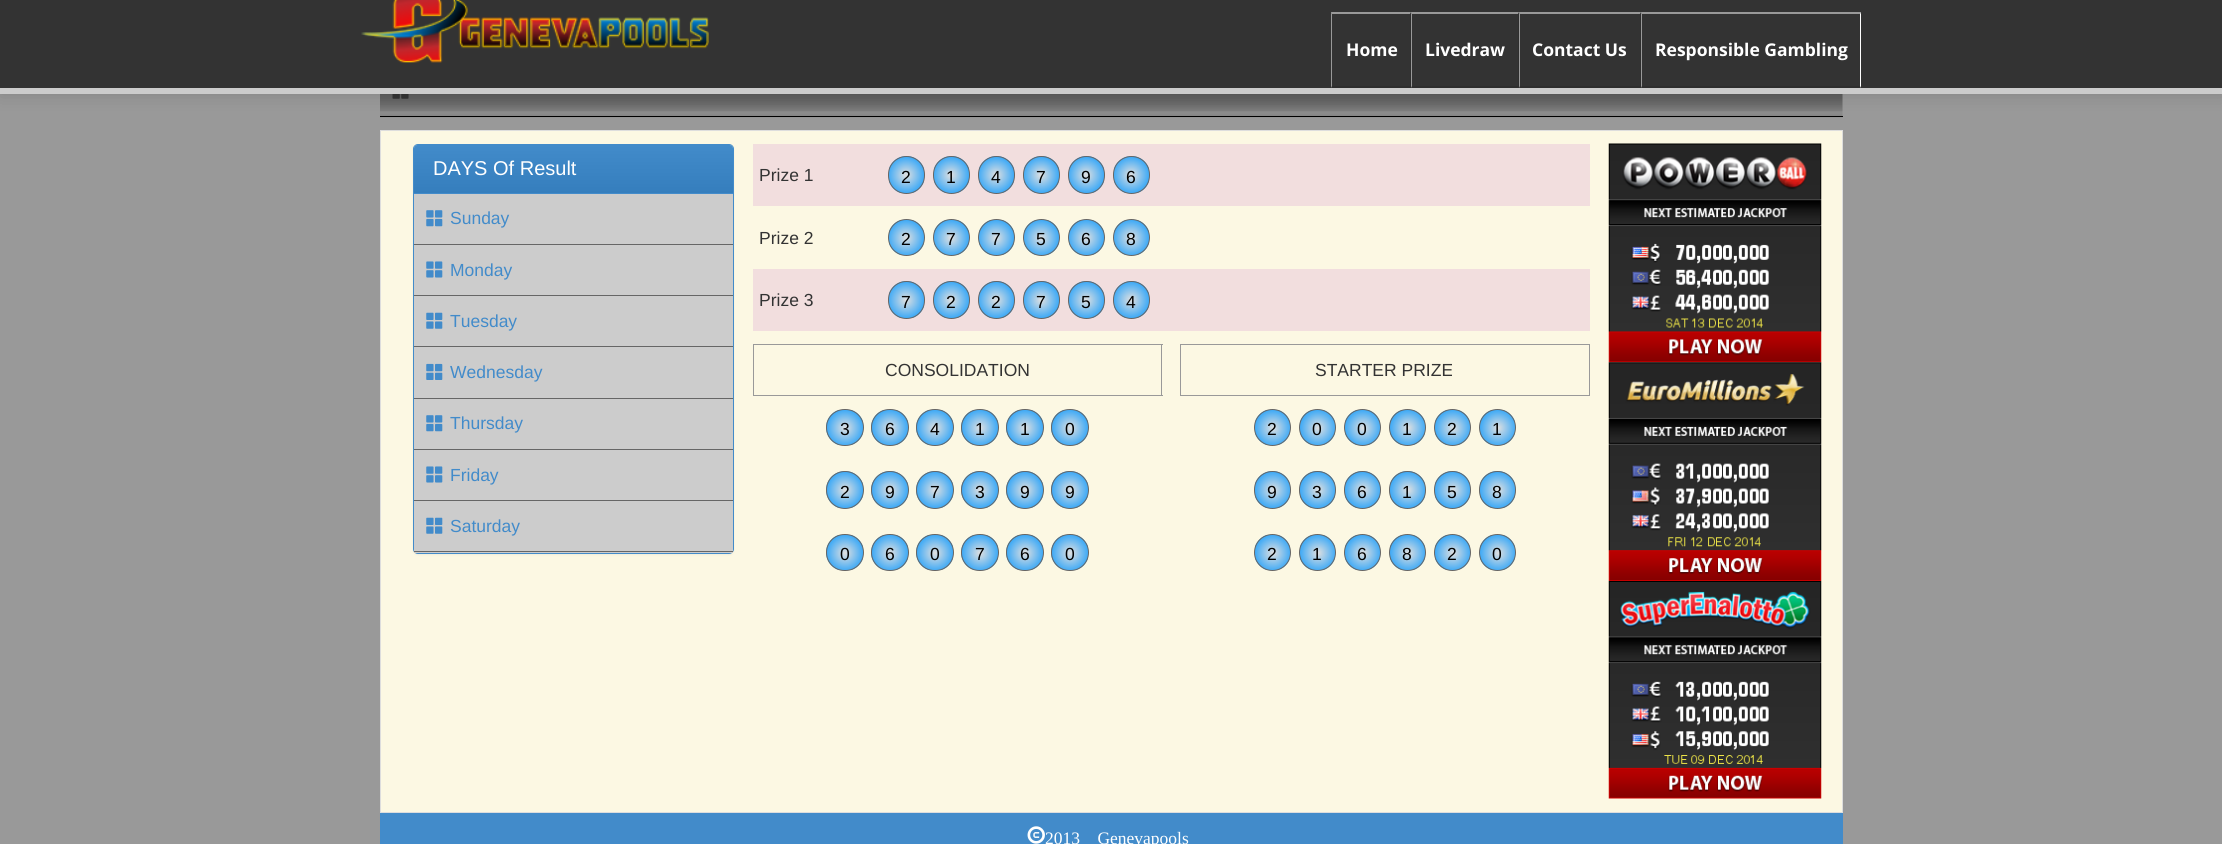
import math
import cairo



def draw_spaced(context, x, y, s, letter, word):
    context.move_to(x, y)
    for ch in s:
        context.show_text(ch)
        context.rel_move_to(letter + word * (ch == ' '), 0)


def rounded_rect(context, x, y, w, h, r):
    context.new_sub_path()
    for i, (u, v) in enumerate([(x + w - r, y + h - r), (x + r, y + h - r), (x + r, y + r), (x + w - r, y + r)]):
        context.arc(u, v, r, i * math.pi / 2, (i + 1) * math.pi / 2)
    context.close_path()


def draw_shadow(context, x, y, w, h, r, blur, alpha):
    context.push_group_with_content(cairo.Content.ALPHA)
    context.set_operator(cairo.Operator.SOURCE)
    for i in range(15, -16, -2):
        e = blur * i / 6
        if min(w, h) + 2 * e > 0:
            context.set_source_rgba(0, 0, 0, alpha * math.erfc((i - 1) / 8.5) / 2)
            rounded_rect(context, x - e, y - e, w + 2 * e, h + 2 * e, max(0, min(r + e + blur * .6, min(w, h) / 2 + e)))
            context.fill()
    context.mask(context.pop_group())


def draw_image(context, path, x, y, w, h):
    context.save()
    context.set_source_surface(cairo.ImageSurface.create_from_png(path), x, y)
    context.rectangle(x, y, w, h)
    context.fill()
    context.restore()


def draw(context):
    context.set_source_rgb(153 / 255, 153 / 255, 153 / 255)
    context.paint()
    draw_image(context, "images/2.png", 380, 94, 1463, 24)
    context.set_source_rgb(0, 0, 0)
    context.rectangle(380, 116, 1463, 1)
    context.fill()
    draw_image(context, "images/3.png", 392, 94, 17, 5)
    context.set_source_rgb(0, 0, 0)
    draw_shadow(context, 0, -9, 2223, 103, 0, 9.5, 0.15)
    context.set_source_rgb(51 / 255, 51 / 255, 51 / 255)
    context.rectangle(0, 0, 2222, 88)
    context.fill()
    context.set_source_rgb(204 / 255, 204 / 255, 204 / 255)
    context.rectangle(0, 88, 2222, 6)
    context.fill()
    draw_image(context, "images/1.png", 361, 0, 348, 63)
    context.set_source_rgb(153 / 255, 153 / 255, 153 / 255)
    context.new_path()
    context.move_to(1331, 12)
    context.line_to(1411, 12)
    context.line_to(1410, 14)
    context.line_to(1332, 14)
    context.close_path()
    context.fill()
    context.set_source_rgba(0, 0, 0, 0.1)
    context.new_path()
    context.move_to(1411, 12)
    context.line_to(1411, 88)
    context.line_to(1410, 86)
    context.line_to(1410, 14)
    context.close_path()
    context.fill()
    context.set_source_rgb(46 / 255, 46 / 255, 46 / 255)
    context.new_path()
    context.move_to(1411, 88)
    context.line_to(1331, 88)
    context.line_to(1332, 86)
    context.line_to(1410, 86)
    context.close_path()
    context.fill()
    context.set_source_rgba(1, 1, 1, 0.5)
    context.new_path()
    context.move_to(1331, 88)
    context.line_to(1331, 12)
    context.line_to(1332, 14)
    context.line_to(1332, 86)
    context.close_path()
    context.fill()
    context.set_source_rgb(153 / 255, 153 / 255, 153 / 255)
    context.new_path()
    context.move_to(1411, 12)
    context.line_to(1519, 12)
    context.line_to(1518, 14)
    context.line_to(1412, 14)
    context.close_path()
    context.fill()
    context.set_source_rgba(0, 0, 0, 0.1)
    context.new_path()
    context.move_to(1519, 12)
    context.line_to(1519, 88)
    context.line_to(1518, 86)
    context.line_to(1518, 14)
    context.close_path()
    context.fill()
    context.set_source_rgb(46 / 255, 46 / 255, 46 / 255)
    context.new_path()
    context.move_to(1519, 88)
    context.line_to(1411, 88)
    context.line_to(1412, 86)
    context.line_to(1518, 86)
    context.close_path()
    context.fill()
    context.set_source_rgba(1, 1, 1, 0.5)
    context.new_path()
    context.move_to(1411, 88)
    context.line_to(1411, 12)
    context.line_to(1412, 14)
    context.line_to(1412, 86)
    context.close_path()
    context.fill()
    context.set_source_rgb(153 / 255, 153 / 255, 153 / 255)
    context.new_path()
    context.move_to(1519, 12)
    context.line_to(1641, 12)
    context.line_to(1640, 14)
    context.line_to(1520, 14)
    context.close_path()
    context.fill()
    context.set_source_rgba(0, 0, 0, 0.1)
    context.new_path()
    context.move_to(1641, 12)
    context.line_to(1641, 88)
    context.line_to(1640, 86)
    context.line_to(1640, 14)
    context.close_path()
    context.fill()
    context.set_source_rgb(46 / 255, 46 / 255, 46 / 255)
    context.new_path()
    context.move_to(1641, 88)
    context.line_to(1519, 88)
    context.line_to(1520, 86)
    context.line_to(1640, 86)
    context.close_path()
    context.fill()
    context.set_source_rgba(1, 1, 1, 0.5)
    context.new_path()
    context.move_to(1519, 88)
    context.line_to(1519, 12)
    context.line_to(1520, 14)
    context.line_to(1520, 86)
    context.close_path()
    context.fill()
    context.set_source_rgb(153 / 255, 153 / 255, 153 / 255)
    context.new_path()
    context.move_to(1641, 12)
    context.line_to(1861, 12)
    context.line_to(1860, 14)
    context.line_to(1642, 14)
    context.close_path()
    context.fill()
    context.set_source_rgb(1, 1, 1)
    context.new_path()
    context.move_to(1861, 12)
    context.line_to(1861, 88)
    context.line_to(1860, 86)
    context.line_to(1860, 14)
    context.close_path()
    context.fill()
    context.set_source_rgba(0, 0, 0, 0.1)
    context.new_path()
    context.move_to(1861, 88)
    context.line_to(1641, 88)
    context.line_to(1642, 86)
    context.line_to(1860, 86)
    context.close_path()
    context.fill()
    context.set_source_rgba(1, 1, 1, 0.5)
    context.new_path()
    context.move_to(1641, 88)
    context.line_to(1641, 12)
    context.line_to(1642, 14)
    context.line_to(1642, 86)
    context.close_path()
    context.fill()
    context.set_source_rgb(252 / 255, 248 / 255, 227 / 255)
    context.rectangle(380.5, 130.5, 1462, 682)
    context.fill_preserve()
    context.set_source_rgb(221 / 255, 221 / 255, 221 / 255)
    context.set_line_width(1)
    context.stroke()
    context.set_source_rgb(0, 0, 0)
    draw_shadow(context, 413, 145, 321, 410, 5, 1, 0.05)
    rounded_rect(context, 413.5, 144.5, 320, 409, 4.5)
    context.set_source_rgb(66 / 255, 139 / 255, 202 / 255)
    context.stroke()
    context.new_path()
    context.move_to(418, 145)
    context.line_to(729, 145)
    context.curve_to(731, 145, 733, 147, 733, 149)
    context.line_to(733, 194)
    context.line_to(414, 194)
    context.line_to(414, 149)
    context.curve_to(414, 147, 416, 145, 418, 145)
    context.close_path()
    context.fill()
    gradient = cairo.LinearGradient(573, 145, 573, 193)
    gradient.add_color_stop_rgba(0, 66 / 255, 139 / 255, 202 / 255, 1)
    gradient.add_color_stop_rgba(1, 53 / 255, 126 / 255, 189 / 255, 1)
    context.set_source(gradient)
    context.new_path()
    context.move_to(418, 145)
    context.line_to(729, 145)
    context.curve_to(731, 145, 733, 147, 733, 149)
    context.line_to(733, 193)
    context.line_to(414, 193)
    context.line_to(414, 149)
    context.curve_to(414, 147, 416, 145, 418, 145)
    context.close_path()
    context.fill()
    context.set_source_rgb(204 / 255, 204 / 255, 204 / 255)
    context.rectangle(414, 194, 319, 50)
    context.fill()
    context.set_source_rgb(102 / 255, 102 / 255, 102 / 255)
    context.rectangle(414, 244, 319, 1)
    context.fill()
    draw_image(context, "images/4.png", 426, 210, 17, 17)
    context.set_source_rgb(204 / 255, 204 / 255, 204 / 255)
    context.rectangle(414, 245, 319, 50)
    context.fill()
    context.set_source_rgb(102 / 255, 102 / 255, 102 / 255)
    context.rectangle(414, 295, 319, 1)
    context.fill()
    draw_image(context, "images/5.png", 426, 261, 17, 17)
    context.set_source_rgb(204 / 255, 204 / 255, 204 / 255)
    context.rectangle(414, 296, 319, 102)
    context.fill()
    context.set_source_rgb(102 / 255, 102 / 255, 102 / 255)
    context.rectangle(414, 346, 319, 1)
    context.fill()
    draw_image(context, "images/6.png", 426, 312, 17, 17)
    context.rectangle(414, 398, 319, 1)
    context.fill()
    draw_image(context, "images/7.png", 426, 363, 17, 17)
    context.set_source_rgb(204 / 255, 204 / 255, 204 / 255)
    context.rectangle(414, 399, 319, 50)
    context.fill()
    context.set_source_rgb(102 / 255, 102 / 255, 102 / 255)
    context.rectangle(414, 449, 319, 1)
    context.fill()
    draw_image(context, "images/4.png", 426, 415, 17, 17)
    context.set_source_rgb(204 / 255, 204 / 255, 204 / 255)
    context.rectangle(414, 450, 319, 50)
    context.fill()
    context.set_source_rgb(102 / 255, 102 / 255, 102 / 255)
    context.rectangle(414, 500, 319, 1)
    context.fill()
    draw_image(context, "images/5.png", 426, 466, 17, 17)
    context.set_source_rgb(204 / 255, 204 / 255, 204 / 255)
    context.rectangle(414, 501, 319, 52)
    context.fill()
    context.set_source_rgb(102 / 255, 102 / 255, 102 / 255)
    context.rectangle(414, 551, 319, 1)
    context.fill()
    draw_image(context, "images/6.png", 426, 517, 17, 17)
    context.set_source_rgb(242 / 255, 222 / 255, 222 / 255)
    context.rectangle(753, 144, 837, 62)
    context.fill()
    context.save()
    rounded_rect(context, 888, 156, 37, 38, 18.5)
    context.clip()
    gradient = cairo.RadialGradient(906, 140, 0, 906, 140, 25)
    gradient.add_color_stop_rgba(0, 224 / 255, 224 / 255, 224 / 255, 1)
    gradient.add_color_stop_rgba(1, 0, 149 / 255, 1, 1)
    context.set_source(gradient)
    context.rectangle(898, 156, 17, 2)
    context.fill()
    gradient = cairo.RadialGradient(906, 175, 0, 906, 175, 25)
    gradient.add_color_stop_rgba(0, 224 / 255, 224 / 255, 224 / 255, 1)
    gradient.add_color_stop_rgba(1, 0, 149 / 255, 1, 1)
    context.set_source(gradient)
    context.rectangle(889, 158, 35, 35)
    context.fill()
    context.restore()
    rounded_rect(context, 888.5, 156.5, 36, 37, 18)
    context.set_source_rgb(102 / 255, 102 / 255, 102 / 255)
    context.stroke()
    context.save()
    rounded_rect(context, 933, 156, 37, 38, 18.5)
    context.clip()
    gradient = cairo.RadialGradient(951, 140, 0, 951, 140, 25)
    gradient.add_color_stop_rgba(0, 224 / 255, 224 / 255, 224 / 255, 1)
    gradient.add_color_stop_rgba(1, 0, 149 / 255, 1, 1)
    context.set_source(gradient)
    context.rectangle(943, 156, 17, 2)
    context.fill()
    gradient = cairo.RadialGradient(951, 175, 0, 951, 175, 25)
    gradient.add_color_stop_rgba(0, 224 / 255, 224 / 255, 224 / 255, 1)
    gradient.add_color_stop_rgba(1, 0, 149 / 255, 1, 1)
    context.set_source(gradient)
    context.rectangle(934, 158, 35, 35)
    context.fill()
    context.restore()
    rounded_rect(context, 933.5, 156.5, 36, 37, 18)
    context.stroke()
    context.save()
    rounded_rect(context, 978, 156, 37, 38, 18.5)
    context.clip()
    gradient = cairo.RadialGradient(996, 140, 0, 996, 140, 25)
    gradient.add_color_stop_rgba(0, 224 / 255, 224 / 255, 224 / 255, 1)
    gradient.add_color_stop_rgba(1, 0, 149 / 255, 1, 1)
    context.set_source(gradient)
    context.rectangle(988, 156, 17, 2)
    context.fill()
    gradient = cairo.RadialGradient(996, 175, 0, 996, 175, 25)
    gradient.add_color_stop_rgba(0, 224 / 255, 224 / 255, 224 / 255, 1)
    gradient.add_color_stop_rgba(1, 0, 149 / 255, 1, 1)
    context.set_source(gradient)
    context.rectangle(979, 158, 35, 35)
    context.fill()
    context.restore()
    rounded_rect(context, 978.5, 156.5, 36, 37, 18)
    context.stroke()
    context.save()
    rounded_rect(context, 1023, 156, 37, 38, 18.5)
    context.clip()
    gradient = cairo.RadialGradient(1041, 140, 0, 1041, 140, 25)
    gradient.add_color_stop_rgba(0, 224 / 255, 224 / 255, 224 / 255, 1)
    gradient.add_color_stop_rgba(1, 0, 149 / 255, 1, 1)
    context.set_source(gradient)
    context.rectangle(1033, 156, 17, 2)
    context.fill()
    gradient = cairo.RadialGradient(1041, 175, 0, 1041, 175, 25)
    gradient.add_color_stop_rgba(0, 224 / 255, 224 / 255, 224 / 255, 1)
    gradient.add_color_stop_rgba(1, 0, 149 / 255, 1, 1)
    context.set_source(gradient)
    context.rectangle(1024, 158, 35, 35)
    context.fill()
    context.restore()
    rounded_rect(context, 1023.5, 156.5, 36, 37, 18)
    context.stroke()
    context.save()
    rounded_rect(context, 1068, 156, 37, 38, 18.5)
    context.clip()
    gradient = cairo.RadialGradient(1086, 140, 0, 1086, 140, 25)
    gradient.add_color_stop_rgba(0, 224 / 255, 224 / 255, 224 / 255, 1)
    gradient.add_color_stop_rgba(1, 0, 149 / 255, 1, 1)
    context.set_source(gradient)
    context.rectangle(1078, 156, 17, 2)
    context.fill()
    gradient = cairo.RadialGradient(1086, 175, 0, 1086, 175, 25)
    gradient.add_color_stop_rgba(0, 224 / 255, 224 / 255, 224 / 255, 1)
    gradient.add_color_stop_rgba(1, 0, 149 / 255, 1, 1)
    context.set_source(gradient)
    context.rectangle(1069, 158, 35, 35)
    context.fill()
    context.restore()
    rounded_rect(context, 1068.5, 156.5, 36, 37, 18)
    context.stroke()
    context.save()
    rounded_rect(context, 1113, 156, 37, 38, 18.5)
    context.clip()
    gradient = cairo.RadialGradient(1131, 140, 0, 1131, 140, 25)
    gradient.add_color_stop_rgba(0, 224 / 255, 224 / 255, 224 / 255, 1)
    gradient.add_color_stop_rgba(1, 0, 149 / 255, 1, 1)
    context.set_source(gradient)
    context.rectangle(1123, 156, 17, 2)
    context.fill()
    gradient = cairo.RadialGradient(1131, 175, 0, 1131, 175, 25)
    gradient.add_color_stop_rgba(0, 224 / 255, 224 / 255, 224 / 255, 1)
    gradient.add_color_stop_rgba(1, 0, 149 / 255, 1, 1)
    context.set_source(gradient)
    context.rectangle(1114, 158, 35, 35)
    context.fill()
    context.restore()
    rounded_rect(context, 1113.5, 156.5, 36, 37, 18)
    context.stroke()
    context.save()
    rounded_rect(context, 888, 219, 37, 37, 18.5)
    context.clip()
    gradient = cairo.RadialGradient(906, 238, 0, 906, 238, 25)
    gradient.add_color_stop_rgba(0, 224 / 255, 224 / 255, 224 / 255, 1)
    gradient.add_color_stop_rgba(1, 0, 149 / 255, 1, 1)
    context.set_source(gradient)
    context.rectangle(889, 220, 35, 35)
    context.fill()
    context.restore()
    context.arc(906.5, 237.5, 18, 0, 2 * math.pi)
    context.stroke()
    context.save()
    rounded_rect(context, 933, 219, 37, 37, 18.5)
    context.clip()
    gradient = cairo.RadialGradient(951, 238, 0, 951, 238, 25)
    gradient.add_color_stop_rgba(0, 224 / 255, 224 / 255, 224 / 255, 1)
    gradient.add_color_stop_rgba(1, 0, 149 / 255, 1, 1)
    context.set_source(gradient)
    context.rectangle(934, 220, 35, 35)
    context.fill()
    context.restore()
    context.arc(951.5, 237.5, 18, 0, 2 * math.pi)
    context.stroke()
    context.save()
    rounded_rect(context, 978, 219, 37, 37, 18.5)
    context.clip()
    gradient = cairo.RadialGradient(996, 238, 0, 996, 238, 25)
    gradient.add_color_stop_rgba(0, 224 / 255, 224 / 255, 224 / 255, 1)
    gradient.add_color_stop_rgba(1, 0, 149 / 255, 1, 1)
    context.set_source(gradient)
    context.rectangle(979, 220, 35, 35)
    context.fill()
    context.restore()
    context.arc(996.5, 237.5, 18, 0, 2 * math.pi)
    context.stroke()
    context.save()
    rounded_rect(context, 1023, 219, 37, 37, 18.5)
    context.clip()
    gradient = cairo.RadialGradient(1041, 238, 0, 1041, 238, 25)
    gradient.add_color_stop_rgba(0, 224 / 255, 224 / 255, 224 / 255, 1)
    gradient.add_color_stop_rgba(1, 0, 149 / 255, 1, 1)
    context.set_source(gradient)
    context.rectangle(1024, 220, 35, 35)
    context.fill()
    context.restore()
    context.arc(1041.5, 237.5, 18, 0, 2 * math.pi)
    context.stroke()
    context.save()
    rounded_rect(context, 1068, 219, 37, 37, 18.5)
    context.clip()
    gradient = cairo.RadialGradient(1086, 238, 0, 1086, 238, 25)
    gradient.add_color_stop_rgba(0, 224 / 255, 224 / 255, 224 / 255, 1)
    gradient.add_color_stop_rgba(1, 0, 149 / 255, 1, 1)
    context.set_source(gradient)
    context.rectangle(1069, 220, 35, 35)
    context.fill()
    context.restore()
    context.arc(1086.5, 237.5, 18, 0, 2 * math.pi)
    context.stroke()
    context.save()
    rounded_rect(context, 1113, 219, 37, 37, 18.5)
    context.clip()
    gradient = cairo.RadialGradient(1131, 238, 0, 1131, 238, 25)
    gradient.add_color_stop_rgba(0, 224 / 255, 224 / 255, 224 / 255, 1)
    gradient.add_color_stop_rgba(1, 0, 149 / 255, 1, 1)
    context.set_source(gradient)
    context.rectangle(1114, 220, 35, 35)
    context.fill()
    context.restore()
    context.arc(1131.5, 237.5, 18, 0, 2 * math.pi)
    context.stroke()
    context.set_source_rgb(242 / 255, 222 / 255, 222 / 255)
    context.rectangle(753, 269, 837, 62)
    context.fill()
    context.save()
    rounded_rect(context, 888, 281, 37, 38, 18.5)
    context.clip()
    gradient = cairo.RadialGradient(906, 265, 0, 906, 265, 25)
    gradient.add_color_stop_rgba(0, 224 / 255, 224 / 255, 224 / 255, 1)
    gradient.add_color_stop_rgba(1, 0, 149 / 255, 1, 1)
    context.set_source(gradient)
    context.rectangle(898, 281, 17, 2)
    context.fill()
    gradient = cairo.RadialGradient(906, 300, 0, 906, 300, 25)
    gradient.add_color_stop_rgba(0, 224 / 255, 224 / 255, 224 / 255, 1)
    gradient.add_color_stop_rgba(1, 0, 149 / 255, 1, 1)
    context.set_source(gradient)
    context.rectangle(889, 283, 35, 35)
    context.fill()
    context.restore()
    rounded_rect(context, 888.5, 281.5, 36, 37, 18)
    context.set_source_rgb(102 / 255, 102 / 255, 102 / 255)
    context.stroke()
    context.save()
    rounded_rect(context, 933, 281, 37, 38, 18.5)
    context.clip()
    gradient = cairo.RadialGradient(951, 265, 0, 951, 265, 25)
    gradient.add_color_stop_rgba(0, 224 / 255, 224 / 255, 224 / 255, 1)
    gradient.add_color_stop_rgba(1, 0, 149 / 255, 1, 1)
    context.set_source(gradient)
    context.rectangle(943, 281, 17, 2)
    context.fill()
    gradient = cairo.RadialGradient(951, 300, 0, 951, 300, 25)
    gradient.add_color_stop_rgba(0, 224 / 255, 224 / 255, 224 / 255, 1)
    gradient.add_color_stop_rgba(1, 0, 149 / 255, 1, 1)
    context.set_source(gradient)
    context.rectangle(934, 283, 35, 35)
    context.fill()
    context.restore()
    rounded_rect(context, 933.5, 281.5, 36, 37, 18)
    context.stroke()
    context.save()
    rounded_rect(context, 978, 281, 37, 38, 18.5)
    context.clip()
    gradient = cairo.RadialGradient(996, 265, 0, 996, 265, 25)
    gradient.add_color_stop_rgba(0, 224 / 255, 224 / 255, 224 / 255, 1)
    gradient.add_color_stop_rgba(1, 0, 149 / 255, 1, 1)
    context.set_source(gradient)
    context.rectangle(988, 281, 17, 2)
    context.fill()
    gradient = cairo.RadialGradient(996, 300, 0, 996, 300, 25)
    gradient.add_color_stop_rgba(0, 224 / 255, 224 / 255, 224 / 255, 1)
    gradient.add_color_stop_rgba(1, 0, 149 / 255, 1, 1)
    context.set_source(gradient)
    context.rectangle(979, 283, 35, 35)
    context.fill()
    context.restore()
    rounded_rect(context, 978.5, 281.5, 36, 37, 18)
    context.stroke()
    context.save()
    rounded_rect(context, 1023, 281, 37, 38, 18.5)
    context.clip()
    gradient = cairo.RadialGradient(1041, 265, 0, 1041, 265, 25)
    gradient.add_color_stop_rgba(0, 224 / 255, 224 / 255, 224 / 255, 1)
    gradient.add_color_stop_rgba(1, 0, 149 / 255, 1, 1)
    context.set_source(gradient)
    context.rectangle(1033, 281, 17, 2)
    context.fill()
    gradient = cairo.RadialGradient(1041, 300, 0, 1041, 300, 25)
    gradient.add_color_stop_rgba(0, 224 / 255, 224 / 255, 224 / 255, 1)
    gradient.add_color_stop_rgba(1, 0, 149 / 255, 1, 1)
    context.set_source(gradient)
    context.rectangle(1024, 283, 35, 35)
    context.fill()
    context.restore()
    rounded_rect(context, 1023.5, 281.5, 36, 37, 18)
    context.stroke()
    context.save()
    rounded_rect(context, 1068, 281, 37, 38, 18.5)
    context.clip()
    gradient = cairo.RadialGradient(1086, 265, 0, 1086, 265, 25)
    gradient.add_color_stop_rgba(0, 224 / 255, 224 / 255, 224 / 255, 1)
    gradient.add_color_stop_rgba(1, 0, 149 / 255, 1, 1)
    context.set_source(gradient)
    context.rectangle(1078, 281, 17, 2)
    context.fill()
    gradient = cairo.RadialGradient(1086, 300, 0, 1086, 300, 25)
    gradient.add_color_stop_rgba(0, 224 / 255, 224 / 255, 224 / 255, 1)
    gradient.add_color_stop_rgba(1, 0, 149 / 255, 1, 1)
    context.set_source(gradient)
    context.rectangle(1069, 283, 35, 35)
    context.fill()
    context.restore()
    rounded_rect(context, 1068.5, 281.5, 36, 37, 18)
    context.stroke()
    context.save()
    rounded_rect(context, 1113, 281, 37, 38, 18.5)
    context.clip()
    gradient = cairo.RadialGradient(1131, 265, 0, 1131, 265, 25)
    gradient.add_color_stop_rgba(0, 224 / 255, 224 / 255, 224 / 255, 1)
    gradient.add_color_stop_rgba(1, 0, 149 / 255, 1, 1)
    context.set_source(gradient)
    context.rectangle(1123, 281, 17, 2)
    context.fill()
    gradient = cairo.RadialGradient(1131, 300, 0, 1131, 300, 25)
    gradient.add_color_stop_rgba(0, 224 / 255, 224 / 255, 224 / 255, 1)
    gradient.add_color_stop_rgba(1, 0, 149 / 255, 1, 1)
    context.set_source(gradient)
    context.rectangle(1114, 283, 35, 35)
    context.fill()
    context.restore()
    rounded_rect(context, 1113.5, 281.5, 36, 37, 18)
    context.stroke()
    context.set_source_rgb(153 / 255, 153 / 255, 153 / 255)
    context.rectangle(753, 344, 410, 1)
    context.fill()
    context.rectangle(1161, 344, 1, 52)
    context.fill()
    context.rectangle(753, 395, 410, 1)
    context.fill()
    context.rectangle(753, 344, 1, 52)
    context.fill()
    context.save()
    rounded_rect(context, 826, 409, 38, 37, 18.5)
    context.clip()
    gradient = cairo.RadialGradient(810, 428, 0, 810, 428, 25)
    gradient.add_color_stop_rgba(0, 224 / 255, 224 / 255, 224 / 255, 1)
    gradient.add_color_stop_rgba(1, 0, 149 / 255, 1, 1)
    context.set_source(gradient)
    context.rectangle(826, 419, 2, 17)
    context.fill()
    gradient = cairo.RadialGradient(845, 428, 0, 845, 428, 25)
    gradient.add_color_stop_rgba(0, 224 / 255, 224 / 255, 224 / 255, 1)
    gradient.add_color_stop_rgba(1, 0, 149 / 255, 1, 1)
    context.set_source(gradient)
    context.rectangle(828, 410, 35, 35)
    context.fill()
    context.restore()
    rounded_rect(context, 826.5, 409.5, 37, 36, 18)
    context.set_source_rgb(102 / 255, 102 / 255, 102 / 255)
    context.stroke()
    context.save()
    rounded_rect(context, 871, 409, 38, 37, 18.5)
    context.clip()
    gradient = cairo.RadialGradient(855, 428, 0, 855, 428, 25)
    gradient.add_color_stop_rgba(0, 224 / 255, 224 / 255, 224 / 255, 1)
    gradient.add_color_stop_rgba(1, 0, 149 / 255, 1, 1)
    context.set_source(gradient)
    context.rectangle(871, 419, 2, 17)
    context.fill()
    gradient = cairo.RadialGradient(890, 428, 0, 890, 428, 25)
    gradient.add_color_stop_rgba(0, 224 / 255, 224 / 255, 224 / 255, 1)
    gradient.add_color_stop_rgba(1, 0, 149 / 255, 1, 1)
    context.set_source(gradient)
    context.rectangle(873, 410, 35, 35)
    context.fill()
    context.restore()
    rounded_rect(context, 871.5, 409.5, 37, 36, 18)
    context.stroke()
    context.save()
    rounded_rect(context, 916, 409, 38, 37, 18.5)
    context.clip()
    gradient = cairo.RadialGradient(900, 428, 0, 900, 428, 25)
    gradient.add_color_stop_rgba(0, 224 / 255, 224 / 255, 224 / 255, 1)
    gradient.add_color_stop_rgba(1, 0, 149 / 255, 1, 1)
    context.set_source(gradient)
    context.rectangle(916, 419, 2, 17)
    context.fill()
    gradient = cairo.RadialGradient(935, 428, 0, 935, 428, 25)
    gradient.add_color_stop_rgba(0, 224 / 255, 224 / 255, 224 / 255, 1)
    gradient.add_color_stop_rgba(1, 0, 149 / 255, 1, 1)
    context.set_source(gradient)
    context.rectangle(918, 410, 35, 35)
    context.fill()
    context.restore()
    rounded_rect(context, 916.5, 409.5, 37, 36, 18)
    context.stroke()
    context.save()
    rounded_rect(context, 961, 409, 38, 37, 18.5)
    context.clip()
    gradient = cairo.RadialGradient(945, 428, 0, 945, 428, 25)
    gradient.add_color_stop_rgba(0, 224 / 255, 224 / 255, 224 / 255, 1)
    gradient.add_color_stop_rgba(1, 0, 149 / 255, 1, 1)
    context.set_source(gradient)
    context.rectangle(961, 419, 2, 17)
    context.fill()
    gradient = cairo.RadialGradient(980, 428, 0, 980, 428, 25)
    gradient.add_color_stop_rgba(0, 224 / 255, 224 / 255, 224 / 255, 1)
    gradient.add_color_stop_rgba(1, 0, 149 / 255, 1, 1)
    context.set_source(gradient)
    context.rectangle(963, 410, 35, 35)
    context.fill()
    context.restore()
    rounded_rect(context, 961.5, 409.5, 37, 36, 18)
    context.stroke()
    context.save()
    rounded_rect(context, 1006, 409, 38, 37, 18.5)
    context.clip()
    gradient = cairo.RadialGradient(990, 428, 0, 990, 428, 25)
    gradient.add_color_stop_rgba(0, 224 / 255, 224 / 255, 224 / 255, 1)
    gradient.add_color_stop_rgba(1, 0, 149 / 255, 1, 1)
    context.set_source(gradient)
    context.rectangle(1006, 419, 2, 17)
    context.fill()
    gradient = cairo.RadialGradient(1025, 428, 0, 1025, 428, 25)
    gradient.add_color_stop_rgba(0, 224 / 255, 224 / 255, 224 / 255, 1)
    gradient.add_color_stop_rgba(1, 0, 149 / 255, 1, 1)
    context.set_source(gradient)
    context.rectangle(1008, 410, 35, 35)
    context.fill()
    context.restore()
    rounded_rect(context, 1006.5, 409.5, 37, 36, 18)
    context.stroke()
    context.save()
    rounded_rect(context, 1051, 409, 38, 37, 18.5)
    context.clip()
    gradient = cairo.RadialGradient(1035, 428, 0, 1035, 428, 25)
    gradient.add_color_stop_rgba(0, 224 / 255, 224 / 255, 224 / 255, 1)
    gradient.add_color_stop_rgba(1, 0, 149 / 255, 1, 1)
    context.set_source(gradient)
    context.rectangle(1051, 419, 2, 17)
    context.fill()
    gradient = cairo.RadialGradient(1070, 428, 0, 1070, 428, 25)
    gradient.add_color_stop_rgba(0, 224 / 255, 224 / 255, 224 / 255, 1)
    gradient.add_color_stop_rgba(1, 0, 149 / 255, 1, 1)
    context.set_source(gradient)
    context.rectangle(1053, 410, 35, 35)
    context.fill()
    context.restore()
    rounded_rect(context, 1051.5, 409.5, 37, 36, 18)
    context.stroke()
    context.save()
    rounded_rect(context, 826, 471, 38, 38, 19)
    context.clip()
    gradient = cairo.RadialGradient(845, 455, 0, 845, 455, 25)
    gradient.add_color_stop_rgba(0, 224 / 255, 224 / 255, 224 / 255, 1)
    gradient.add_color_stop_rgba(1, 0, 149 / 255, 1, 1)
    context.set_source(gradient)
    context.rectangle(828, 471, 26, 2)
    context.fill()
    gradient = cairo.RadialGradient(810, 490, 0, 810, 490, 25)
    gradient.add_color_stop_rgba(0, 224 / 255, 224 / 255, 224 / 255, 1)
    gradient.add_color_stop_rgba(1, 0, 149 / 255, 1, 1)
    context.set_source(gradient)
    context.rectangle(826, 473, 2, 26)
    context.fill()
    gradient = cairo.RadialGradient(845, 490, 0, 845, 490, 25)
    gradient.add_color_stop_rgba(0, 224 / 255, 224 / 255, 224 / 255, 1)
    gradient.add_color_stop_rgba(1, 0, 149 / 255, 1, 1)
    context.set_source(gradient)
    context.rectangle(828, 473, 35, 35)
    context.fill()
    context.restore()
    context.arc(845, 490, 18.5, 0, 2 * math.pi)
    context.stroke()
    context.save()
    rounded_rect(context, 871, 471, 38, 38, 19)
    context.clip()
    gradient = cairo.RadialGradient(890, 455, 0, 890, 455, 25)
    gradient.add_color_stop_rgba(0, 224 / 255, 224 / 255, 224 / 255, 1)
    gradient.add_color_stop_rgba(1, 0, 149 / 255, 1, 1)
    context.set_source(gradient)
    context.rectangle(873, 471, 26, 2)
    context.fill()
    gradient = cairo.RadialGradient(855, 490, 0, 855, 490, 25)
    gradient.add_color_stop_rgba(0, 224 / 255, 224 / 255, 224 / 255, 1)
    gradient.add_color_stop_rgba(1, 0, 149 / 255, 1, 1)
    context.set_source(gradient)
    context.rectangle(871, 473, 2, 26)
    context.fill()
    gradient = cairo.RadialGradient(890, 490, 0, 890, 490, 25)
    gradient.add_color_stop_rgba(0, 224 / 255, 224 / 255, 224 / 255, 1)
    gradient.add_color_stop_rgba(1, 0, 149 / 255, 1, 1)
    context.set_source(gradient)
    context.rectangle(873, 473, 35, 35)
    context.fill()
    context.restore()
    context.arc(890, 490, 18.5, 0, 2 * math.pi)
    context.stroke()
    context.save()
    rounded_rect(context, 916, 471, 38, 38, 19)
    context.clip()
    gradient = cairo.RadialGradient(935, 455, 0, 935, 455, 25)
    gradient.add_color_stop_rgba(0, 224 / 255, 224 / 255, 224 / 255, 1)
    gradient.add_color_stop_rgba(1, 0, 149 / 255, 1, 1)
    context.set_source(gradient)
    context.rectangle(918, 471, 26, 2)
    context.fill()
    gradient = cairo.RadialGradient(900, 490, 0, 900, 490, 25)
    gradient.add_color_stop_rgba(0, 224 / 255, 224 / 255, 224 / 255, 1)
    gradient.add_color_stop_rgba(1, 0, 149 / 255, 1, 1)
    context.set_source(gradient)
    context.rectangle(916, 473, 2, 26)
    context.fill()
    gradient = cairo.RadialGradient(935, 490, 0, 935, 490, 25)
    gradient.add_color_stop_rgba(0, 224 / 255, 224 / 255, 224 / 255, 1)
    gradient.add_color_stop_rgba(1, 0, 149 / 255, 1, 1)
    context.set_source(gradient)
    context.rectangle(918, 473, 35, 35)
    context.fill()
    context.restore()
    context.arc(935, 490, 18.5, 0, 2 * math.pi)
    context.stroke()
    context.save()
    rounded_rect(context, 961, 471, 38, 38, 19)
    context.clip()
    gradient = cairo.RadialGradient(980, 455, 0, 980, 455, 25)
    gradient.add_color_stop_rgba(0, 224 / 255, 224 / 255, 224 / 255, 1)
    gradient.add_color_stop_rgba(1, 0, 149 / 255, 1, 1)
    context.set_source(gradient)
    context.rectangle(963, 471, 26, 2)
    context.fill()
    gradient = cairo.RadialGradient(945, 490, 0, 945, 490, 25)
    gradient.add_color_stop_rgba(0, 224 / 255, 224 / 255, 224 / 255, 1)
    gradient.add_color_stop_rgba(1, 0, 149 / 255, 1, 1)
    context.set_source(gradient)
    context.rectangle(961, 473, 2, 26)
    context.fill()
    gradient = cairo.RadialGradient(980, 490, 0, 980, 490, 25)
    gradient.add_color_stop_rgba(0, 224 / 255, 224 / 255, 224 / 255, 1)
    gradient.add_color_stop_rgba(1, 0, 149 / 255, 1, 1)
    context.set_source(gradient)
    context.rectangle(963, 473, 35, 35)
    context.fill()
    context.restore()
    context.arc(980, 490, 18.5, 0, 2 * math.pi)
    context.stroke()
    context.save()
    rounded_rect(context, 1006, 471, 38, 38, 19)
    context.clip()
    gradient = cairo.RadialGradient(1025, 455, 0, 1025, 455, 25)
    gradient.add_color_stop_rgba(0, 224 / 255, 224 / 255, 224 / 255, 1)
    gradient.add_color_stop_rgba(1, 0, 149 / 255, 1, 1)
    context.set_source(gradient)
    context.rectangle(1008, 471, 26, 2)
    context.fill()
    gradient = cairo.RadialGradient(990, 490, 0, 990, 490, 25)
    gradient.add_color_stop_rgba(0, 224 / 255, 224 / 255, 224 / 255, 1)
    gradient.add_color_stop_rgba(1, 0, 149 / 255, 1, 1)
    context.set_source(gradient)
    context.rectangle(1006, 473, 2, 26)
    context.fill()
    gradient = cairo.RadialGradient(1025, 490, 0, 1025, 490, 25)
    gradient.add_color_stop_rgba(0, 224 / 255, 224 / 255, 224 / 255, 1)
    gradient.add_color_stop_rgba(1, 0, 149 / 255, 1, 1)
    context.set_source(gradient)
    context.rectangle(1008, 473, 35, 35)
    context.fill()
    context.restore()
    context.arc(1025, 490, 18.5, 0, 2 * math.pi)
    context.stroke()
    context.save()
    rounded_rect(context, 1051, 471, 38, 38, 19)
    context.clip()
    gradient = cairo.RadialGradient(1070, 455, 0, 1070, 455, 25)
    gradient.add_color_stop_rgba(0, 224 / 255, 224 / 255, 224 / 255, 1)
    gradient.add_color_stop_rgba(1, 0, 149 / 255, 1, 1)
    context.set_source(gradient)
    context.rectangle(1053, 471, 26, 2)
    context.fill()
    gradient = cairo.RadialGradient(1035, 490, 0, 1035, 490, 25)
    gradient.add_color_stop_rgba(0, 224 / 255, 224 / 255, 224 / 255, 1)
    gradient.add_color_stop_rgba(1, 0, 149 / 255, 1, 1)
    context.set_source(gradient)
    context.rectangle(1051, 473, 2, 26)
    context.fill()
    gradient = cairo.RadialGradient(1070, 490, 0, 1070, 490, 25)
    gradient.add_color_stop_rgba(0, 224 / 255, 224 / 255, 224 / 255, 1)
    gradient.add_color_stop_rgba(1, 0, 149 / 255, 1, 1)
    context.set_source(gradient)
    context.rectangle(1053, 473, 35, 35)
    context.fill()
    context.restore()
    context.arc(1070, 490, 18.5, 0, 2 * math.pi)
    context.stroke()
    context.save()
    rounded_rect(context, 826, 534, 38, 37, 18.5)
    context.clip()
    gradient = cairo.RadialGradient(810, 553, 0, 810, 553, 25)
    gradient.add_color_stop_rgba(0, 224 / 255, 224 / 255, 224 / 255, 1)
    gradient.add_color_stop_rgba(1, 0, 149 / 255, 1, 1)
    context.set_source(gradient)
    context.rectangle(826, 544, 2, 17)
    context.fill()
    gradient = cairo.RadialGradient(845, 553, 0, 845, 553, 25)
    gradient.add_color_stop_rgba(0, 224 / 255, 224 / 255, 224 / 255, 1)
    gradient.add_color_stop_rgba(1, 0, 149 / 255, 1, 1)
    context.set_source(gradient)
    context.rectangle(828, 535, 35, 35)
    context.fill()
    context.restore()
    rounded_rect(context, 826.5, 534.5, 37, 36, 18)
    context.stroke()
    context.save()
    rounded_rect(context, 871, 534, 38, 37, 18.5)
    context.clip()
    gradient = cairo.RadialGradient(855, 553, 0, 855, 553, 25)
    gradient.add_color_stop_rgba(0, 224 / 255, 224 / 255, 224 / 255, 1)
    gradient.add_color_stop_rgba(1, 0, 149 / 255, 1, 1)
    context.set_source(gradient)
    context.rectangle(871, 544, 2, 17)
    context.fill()
    gradient = cairo.RadialGradient(890, 553, 0, 890, 553, 25)
    gradient.add_color_stop_rgba(0, 224 / 255, 224 / 255, 224 / 255, 1)
    gradient.add_color_stop_rgba(1, 0, 149 / 255, 1, 1)
    context.set_source(gradient)
    context.rectangle(873, 535, 35, 35)
    context.fill()
    context.restore()
    rounded_rect(context, 871.5, 534.5, 37, 36, 18)
    context.stroke()
    context.save()
    rounded_rect(context, 916, 534, 38, 37, 18.5)
    context.clip()
    gradient = cairo.RadialGradient(900, 553, 0, 900, 553, 25)
    gradient.add_color_stop_rgba(0, 224 / 255, 224 / 255, 224 / 255, 1)
    gradient.add_color_stop_rgba(1, 0, 149 / 255, 1, 1)
    context.set_source(gradient)
    context.rectangle(916, 544, 2, 17)
    context.fill()
    gradient = cairo.RadialGradient(935, 553, 0, 935, 553, 25)
    gradient.add_color_stop_rgba(0, 224 / 255, 224 / 255, 224 / 255, 1)
    gradient.add_color_stop_rgba(1, 0, 149 / 255, 1, 1)
    context.set_source(gradient)
    context.rectangle(918, 535, 35, 35)
    context.fill()
    context.restore()
    rounded_rect(context, 916.5, 534.5, 37, 36, 18)
    context.stroke()
    context.save()
    rounded_rect(context, 961, 534, 38, 37, 18.5)
    context.clip()
    gradient = cairo.RadialGradient(945, 553, 0, 945, 553, 25)
    gradient.add_color_stop_rgba(0, 224 / 255, 224 / 255, 224 / 255, 1)
    gradient.add_color_stop_rgba(1, 0, 149 / 255, 1, 1)
    context.set_source(gradient)
    context.rectangle(961, 544, 2, 17)
    context.fill()
    gradient = cairo.RadialGradient(980, 553, 0, 980, 553, 25)
    gradient.add_color_stop_rgba(0, 224 / 255, 224 / 255, 224 / 255, 1)
    gradient.add_color_stop_rgba(1, 0, 149 / 255, 1, 1)
    context.set_source(gradient)
    context.rectangle(963, 535, 35, 35)
    context.fill()
    context.restore()
    rounded_rect(context, 961.5, 534.5, 37, 36, 18)
    context.stroke()
    context.save()
    rounded_rect(context, 1006, 534, 38, 37, 18.5)
    context.clip()
    gradient = cairo.RadialGradient(990, 553, 0, 990, 553, 25)
    gradient.add_color_stop_rgba(0, 224 / 255, 224 / 255, 224 / 255, 1)
    gradient.add_color_stop_rgba(1, 0, 149 / 255, 1, 1)
    context.set_source(gradient)
    context.rectangle(1006, 544, 2, 17)
    context.fill()
    gradient = cairo.RadialGradient(1025, 553, 0, 1025, 553, 25)
    gradient.add_color_stop_rgba(0, 224 / 255, 224 / 255, 224 / 255, 1)
    gradient.add_color_stop_rgba(1, 0, 149 / 255, 1, 1)
    context.set_source(gradient)
    context.rectangle(1008, 535, 35, 35)
    context.fill()
    context.restore()
    rounded_rect(context, 1006.5, 534.5, 37, 36, 18)
    context.stroke()
    context.save()
    rounded_rect(context, 1051, 534, 38, 37, 18.5)
    context.clip()
    gradient = cairo.RadialGradient(1035, 553, 0, 1035, 553, 25)
    gradient.add_color_stop_rgba(0, 224 / 255, 224 / 255, 224 / 255, 1)
    gradient.add_color_stop_rgba(1, 0, 149 / 255, 1, 1)
    context.set_source(gradient)
    context.rectangle(1051, 544, 2, 17)
    context.fill()
    gradient = cairo.RadialGradient(1070, 553, 0, 1070, 553, 25)
    gradient.add_color_stop_rgba(0, 224 / 255, 224 / 255, 224 / 255, 1)
    gradient.add_color_stop_rgba(1, 0, 149 / 255, 1, 1)
    context.set_source(gradient)
    context.rectangle(1053, 535, 35, 35)
    context.fill()
    context.restore()
    rounded_rect(context, 1051.5, 534.5, 37, 36, 18)
    context.stroke()
    context.set_source_rgb(153 / 255, 153 / 255, 153 / 255)
    context.rectangle(1180, 344, 410, 1)
    context.fill()
    context.rectangle(1589, 344, 1, 52)
    context.fill()
    context.rectangle(1180, 395, 410, 1)
    context.fill()
    context.rectangle(1180, 344, 1, 52)
    context.fill()
    context.save()
    rounded_rect(context, 1254, 409, 37, 37, 18.5)
    context.clip()
    gradient = cairo.RadialGradient(1273, 428, 0, 1273, 428, 25)
    gradient.add_color_stop_rgba(0, 224 / 255, 224 / 255, 224 / 255, 1)
    gradient.add_color_stop_rgba(1, 0, 149 / 255, 1, 1)
    context.set_source(gradient)
    context.rectangle(1255, 410, 35, 35)
    context.fill()
    context.restore()
    context.arc(1272.5, 427.5, 18, 0, 2 * math.pi)
    context.set_source_rgb(102 / 255, 102 / 255, 102 / 255)
    context.stroke()
    context.save()
    rounded_rect(context, 1299, 409, 37, 37, 18.5)
    context.clip()
    gradient = cairo.RadialGradient(1318, 428, 0, 1318, 428, 25)
    gradient.add_color_stop_rgba(0, 224 / 255, 224 / 255, 224 / 255, 1)
    gradient.add_color_stop_rgba(1, 0, 149 / 255, 1, 1)
    context.set_source(gradient)
    context.rectangle(1300, 410, 35, 35)
    context.fill()
    context.restore()
    context.arc(1317.5, 427.5, 18, 0, 2 * math.pi)
    context.stroke()
    context.save()
    rounded_rect(context, 1344, 409, 37, 37, 18.5)
    context.clip()
    gradient = cairo.RadialGradient(1363, 428, 0, 1363, 428, 25)
    gradient.add_color_stop_rgba(0, 224 / 255, 224 / 255, 224 / 255, 1)
    gradient.add_color_stop_rgba(1, 0, 149 / 255, 1, 1)
    context.set_source(gradient)
    context.rectangle(1345, 410, 35, 35)
    context.fill()
    context.restore()
    context.arc(1362.5, 427.5, 18, 0, 2 * math.pi)
    context.stroke()
    context.save()
    rounded_rect(context, 1389, 409, 37, 37, 18.5)
    context.clip()
    gradient = cairo.RadialGradient(1408, 428, 0, 1408, 428, 25)
    gradient.add_color_stop_rgba(0, 224 / 255, 224 / 255, 224 / 255, 1)
    gradient.add_color_stop_rgba(1, 0, 149 / 255, 1, 1)
    context.set_source(gradient)
    context.rectangle(1390, 410, 35, 35)
    context.fill()
    context.restore()
    context.arc(1407.5, 427.5, 18, 0, 2 * math.pi)
    context.stroke()
    context.save()
    rounded_rect(context, 1434, 409, 37, 37, 18.5)
    context.clip()
    gradient = cairo.RadialGradient(1453, 428, 0, 1453, 428, 25)
    gradient.add_color_stop_rgba(0, 224 / 255, 224 / 255, 224 / 255, 1)
    gradient.add_color_stop_rgba(1, 0, 149 / 255, 1, 1)
    context.set_source(gradient)
    context.rectangle(1435, 410, 35, 35)
    context.fill()
    context.restore()
    context.arc(1452.5, 427.5, 18, 0, 2 * math.pi)
    context.stroke()
    context.save()
    rounded_rect(context, 1479, 409, 37, 37, 18.5)
    context.clip()
    gradient = cairo.RadialGradient(1498, 428, 0, 1498, 428, 25)
    gradient.add_color_stop_rgba(0, 224 / 255, 224 / 255, 224 / 255, 1)
    gradient.add_color_stop_rgba(1, 0, 149 / 255, 1, 1)
    context.set_source(gradient)
    context.rectangle(1480, 410, 35, 35)
    context.fill()
    context.restore()
    context.arc(1497.5, 427.5, 18, 0, 2 * math.pi)
    context.stroke()
    context.save()
    rounded_rect(context, 1254, 471, 37, 38, 18.5)
    context.clip()
    gradient = cairo.RadialGradient(1273, 455, 0, 1273, 455, 25)
    gradient.add_color_stop_rgba(0, 224 / 255, 224 / 255, 224 / 255, 1)
    gradient.add_color_stop_rgba(1, 0, 149 / 255, 1, 1)
    context.set_source(gradient)
    context.rectangle(1264, 471, 17, 2)
    context.fill()
    gradient = cairo.RadialGradient(1273, 490, 0, 1273, 490, 25)
    gradient.add_color_stop_rgba(0, 224 / 255, 224 / 255, 224 / 255, 1)
    gradient.add_color_stop_rgba(1, 0, 149 / 255, 1, 1)
    context.set_source(gradient)
    context.rectangle(1255, 473, 35, 35)
    context.fill()
    context.restore()
    rounded_rect(context, 1254.5, 471.5, 36, 37, 18)
    context.stroke()
    context.save()
    rounded_rect(context, 1299, 471, 37, 38, 18.5)
    context.clip()
    gradient = cairo.RadialGradient(1318, 455, 0, 1318, 455, 25)
    gradient.add_color_stop_rgba(0, 224 / 255, 224 / 255, 224 / 255, 1)
    gradient.add_color_stop_rgba(1, 0, 149 / 255, 1, 1)
    context.set_source(gradient)
    context.rectangle(1309, 471, 17, 2)
    context.fill()
    gradient = cairo.RadialGradient(1318, 490, 0, 1318, 490, 25)
    gradient.add_color_stop_rgba(0, 224 / 255, 224 / 255, 224 / 255, 1)
    gradient.add_color_stop_rgba(1, 0, 149 / 255, 1, 1)
    context.set_source(gradient)
    context.rectangle(1300, 473, 35, 35)
    context.fill()
    context.restore()
    rounded_rect(context, 1299.5, 471.5, 36, 37, 18)
    context.stroke()
    context.save()
    rounded_rect(context, 1344, 471, 37, 38, 18.5)
    context.clip()
    gradient = cairo.RadialGradient(1363, 455, 0, 1363, 455, 25)
    gradient.add_color_stop_rgba(0, 224 / 255, 224 / 255, 224 / 255, 1)
    gradient.add_color_stop_rgba(1, 0, 149 / 255, 1, 1)
    context.set_source(gradient)
    context.rectangle(1354, 471, 17, 2)
    context.fill()
    gradient = cairo.RadialGradient(1363, 490, 0, 1363, 490, 25)
    gradient.add_color_stop_rgba(0, 224 / 255, 224 / 255, 224 / 255, 1)
    gradient.add_color_stop_rgba(1, 0, 149 / 255, 1, 1)
    context.set_source(gradient)
    context.rectangle(1345, 473, 35, 35)
    context.fill()
    context.restore()
    rounded_rect(context, 1344.5, 471.5, 36, 37, 18)
    context.stroke()
    context.save()
    rounded_rect(context, 1389, 471, 37, 38, 18.5)
    context.clip()
    gradient = cairo.RadialGradient(1408, 455, 0, 1408, 455, 25)
    gradient.add_color_stop_rgba(0, 224 / 255, 224 / 255, 224 / 255, 1)
    gradient.add_color_stop_rgba(1, 0, 149 / 255, 1, 1)
    context.set_source(gradient)
    context.rectangle(1399, 471, 17, 2)
    context.fill()
    gradient = cairo.RadialGradient(1408, 490, 0, 1408, 490, 25)
    gradient.add_color_stop_rgba(0, 224 / 255, 224 / 255, 224 / 255, 1)
    gradient.add_color_stop_rgba(1, 0, 149 / 255, 1, 1)
    context.set_source(gradient)
    context.rectangle(1390, 473, 35, 35)
    context.fill()
    context.restore()
    rounded_rect(context, 1389.5, 471.5, 36, 37, 18)
    context.stroke()
    context.save()
    rounded_rect(context, 1434, 471, 37, 38, 18.5)
    context.clip()
    gradient = cairo.RadialGradient(1453, 455, 0, 1453, 455, 25)
    gradient.add_color_stop_rgba(0, 224 / 255, 224 / 255, 224 / 255, 1)
    gradient.add_color_stop_rgba(1, 0, 149 / 255, 1, 1)
    context.set_source(gradient)
    context.rectangle(1444, 471, 17, 2)
    context.fill()
    gradient = cairo.RadialGradient(1453, 490, 0, 1453, 490, 25)
    gradient.add_color_stop_rgba(0, 224 / 255, 224 / 255, 224 / 255, 1)
    gradient.add_color_stop_rgba(1, 0, 149 / 255, 1, 1)
    context.set_source(gradient)
    context.rectangle(1435, 473, 35, 35)
    context.fill()
    context.restore()
    rounded_rect(context, 1434.5, 471.5, 36, 37, 18)
    context.stroke()
    context.save()
    rounded_rect(context, 1479, 471, 37, 38, 18.5)
    context.clip()
    gradient = cairo.RadialGradient(1498, 455, 0, 1498, 455, 25)
    gradient.add_color_stop_rgba(0, 224 / 255, 224 / 255, 224 / 255, 1)
    gradient.add_color_stop_rgba(1, 0, 149 / 255, 1, 1)
    context.set_source(gradient)
    context.rectangle(1489, 471, 17, 2)
    context.fill()
    gradient = cairo.RadialGradient(1498, 490, 0, 1498, 490, 25)
    gradient.add_color_stop_rgba(0, 224 / 255, 224 / 255, 224 / 255, 1)
    gradient.add_color_stop_rgba(1, 0, 149 / 255, 1, 1)
    context.set_source(gradient)
    context.rectangle(1480, 473, 35, 35)
    context.fill()
    context.restore()
    rounded_rect(context, 1479.5, 471.5, 36, 37, 18)
    context.stroke()
    context.save()
    rounded_rect(context, 1254, 534, 37, 37, 18.5)
    context.clip()
    gradient = cairo.RadialGradient(1273, 553, 0, 1273, 553, 25)
    gradient.add_color_stop_rgba(0, 224 / 255, 224 / 255, 224 / 255, 1)
    gradient.add_color_stop_rgba(1, 0, 149 / 255, 1, 1)
    context.set_source(gradient)
    context.rectangle(1255, 535, 35, 35)
    context.fill()
    context.restore()
    context.arc(1272.5, 552.5, 18, 0, 2 * math.pi)
    context.stroke()
    context.save()
    rounded_rect(context, 1299, 534, 37, 37, 18.5)
    context.clip()
    gradient = cairo.RadialGradient(1318, 553, 0, 1318, 553, 25)
    gradient.add_color_stop_rgba(0, 224 / 255, 224 / 255, 224 / 255, 1)
    gradient.add_color_stop_rgba(1, 0, 149 / 255, 1, 1)
    context.set_source(gradient)
    context.rectangle(1300, 535, 35, 35)
    context.fill()
    context.restore()
    context.arc(1317.5, 552.5, 18, 0, 2 * math.pi)
    context.stroke()
    context.save()
    rounded_rect(context, 1344, 534, 37, 37, 18.5)
    context.clip()
    gradient = cairo.RadialGradient(1363, 553, 0, 1363, 553, 25)
    gradient.add_color_stop_rgba(0, 224 / 255, 224 / 255, 224 / 255, 1)
    gradient.add_color_stop_rgba(1, 0, 149 / 255, 1, 1)
    context.set_source(gradient)
    context.rectangle(1345, 535, 35, 35)
    context.fill()
    context.restore()
    context.arc(1362.5, 552.5, 18, 0, 2 * math.pi)
    context.stroke()
    context.save()
    rounded_rect(context, 1389, 534, 37, 37, 18.5)
    context.clip()
    gradient = cairo.RadialGradient(1408, 553, 0, 1408, 553, 25)
    gradient.add_color_stop_rgba(0, 224 / 255, 224 / 255, 224 / 255, 1)
    gradient.add_color_stop_rgba(1, 0, 149 / 255, 1, 1)
    context.set_source(gradient)
    context.rectangle(1390, 535, 35, 35)
    context.fill()
    context.restore()
    context.arc(1407.5, 552.5, 18, 0, 2 * math.pi)
    context.stroke()
    context.save()
    rounded_rect(context, 1434, 534, 37, 37, 18.5)
    context.clip()
    gradient = cairo.RadialGradient(1453, 553, 0, 1453, 553, 25)
    gradient.add_color_stop_rgba(0, 224 / 255, 224 / 255, 224 / 255, 1)
    gradient.add_color_stop_rgba(1, 0, 149 / 255, 1, 1)
    context.set_source(gradient)
    context.rectangle(1435, 535, 35, 35)
    context.fill()
    context.restore()
    context.arc(1452.5, 552.5, 18, 0, 2 * math.pi)
    context.stroke()
    context.save()
    rounded_rect(context, 1479, 534, 37, 37, 18.5)
    context.clip()
    gradient = cairo.RadialGradient(1498, 553, 0, 1498, 553, 25)
    gradient.add_color_stop_rgba(0, 224 / 255, 224 / 255, 224 / 255, 1)
    gradient.add_color_stop_rgba(1, 0, 149 / 255, 1, 1)
    context.set_source(gradient)
    context.rectangle(1480, 535, 35, 35)
    context.fill()
    context.restore()
    context.arc(1497.5, 552.5, 18, 0, 2 * math.pi)
    context.stroke()
    draw_image(context, "images/8.png", 1608, 143, 214, 220)
    draw_image(context, "images/9.png", 1608, 362, 214, 219)
    draw_image(context, "images/10.png", 1608, 581, 214, 218)
    context.set_source_rgb(66 / 255, 139 / 255, 202 / 255)
    context.rectangle(380, 813, 1463, 31)
    context.fill()
    draw_image(context, "images/11.png", 1027, 826, 18, 18)
    context.select_font_face("Open Sans", cairo.FontSlant.NORMAL, cairo.FontWeight.BOLD)
    context.set_font_size(17.5)
    context.set_source_rgb(1, 1, 1)
    context.move_to(1346, 56)
    context.show_text("Home")
    context.move_to(1425, 56)
    context.show_text("Livedraw")
    context.move_to(1532, 56)
    context.show_text("Contact Us")
    context.move_to(1655, 56)
    context.show_text("Responsible Gambling")
    context.select_font_face("Liberation Sans")
    context.set_font_size(20)
    context.move_to(433, 175)
    context.show_text("DAYS Of Result")
    context.set_font_size(17.5)
    context.set_source_rgb(66 / 255, 139 / 255, 202 / 255)
    context.move_to(450, 224)
    context.show_text("Sunday")
    context.move_to(450, 276)
    context.show_text("Monday")
    context.move_to(450, 327)
    context.show_text("Tuesday")
    context.move_to(450, 378)
    context.show_text("Wednesday")
    context.move_to(450, 429)
    context.show_text("Thursday")
    context.move_to(450, 481)
    context.show_text("Friday")
    context.move_to(450, 532)
    context.show_text("Saturday")
    context.set_source_rgb(51 / 255, 51 / 255, 51 / 255)
    context.move_to(759, 181)
    context.show_text("Prize 1")
    context.set_source_rgb(0, 0, 0)
    context.move_to(901, 183)
    context.show_text("2")
    context.move_to(946, 183)
    context.show_text("1")
    context.move_to(991, 183)
    context.show_text("4")
    context.move_to(1036, 183)
    context.show_text("7")
    context.move_to(1081, 183)
    context.show_text("9")
    context.move_to(1126, 183)
    context.show_text("6")
    context.set_source_rgb(51 / 255, 51 / 255, 51 / 255)
    context.move_to(759, 244)
    context.show_text("Prize 2")
    context.set_source_rgb(0, 0, 0)
    context.move_to(901, 245)
    context.show_text("2")
    context.move_to(946, 245)
    context.show_text("7")
    context.move_to(991, 245)
    context.show_text("7")
    context.move_to(1036, 245)
    context.show_text("5")
    context.move_to(1081, 245)
    context.show_text("6")
    context.move_to(1126, 245)
    context.show_text("8")
    context.set_source_rgb(51 / 255, 51 / 255, 51 / 255)
    context.move_to(759, 306)
    context.show_text("Prize 3")
    context.set_source_rgb(0, 0, 0)
    context.move_to(901, 308)
    context.show_text("7")
    context.move_to(946, 308)
    context.show_text("2")
    context.move_to(991, 308)
    context.show_text("2")
    context.move_to(1036, 308)
    context.show_text("7")
    context.move_to(1081, 308)
    context.show_text("5")
    context.move_to(1126, 308)
    context.show_text("4")
    context.set_source_rgb(51 / 255, 51 / 255, 51 / 255)
    context.move_to(885, 376)
    context.show_text("CONSOLIDATION")
    context.set_source_rgb(0, 0, 0)
    context.move_to(840, 435)
    context.show_text("3")
    context.move_to(885, 435)
    context.show_text("6")
    context.move_to(930, 435)
    context.show_text("4")
    context.move_to(975, 435)
    context.show_text("1")
    context.move_to(1020, 435)
    context.show_text("1")
    context.move_to(1065, 435)
    context.show_text("0")
    context.move_to(840, 498)
    context.show_text("2")
    context.move_to(885, 498)
    context.show_text("9")
    context.move_to(930, 498)
    context.show_text("7")
    context.move_to(975, 498)
    context.show_text("3")
    context.move_to(1020, 498)
    context.show_text("9")
    context.move_to(1065, 498)
    context.show_text("9")
    context.move_to(840, 560)
    context.show_text("0")
    context.move_to(885, 560)
    context.show_text("6")
    context.move_to(930, 560)
    context.show_text("0")
    context.move_to(975, 560)
    context.show_text("7")
    context.move_to(1020, 560)
    context.show_text("6")
    context.move_to(1065, 560)
    context.show_text("0")
    context.set_source_rgb(51 / 255, 51 / 255, 51 / 255)
    context.move_to(1315, 376)
    context.show_text("STARTER PRIZE")
    context.set_source_rgb(0, 0, 0)
    context.move_to(1267, 435)
    context.show_text("2")
    context.move_to(1312, 435)
    context.show_text("0")
    context.move_to(1357, 435)
    context.show_text("0")
    context.move_to(1402, 435)
    context.show_text("1")
    context.move_to(1447, 435)
    context.show_text("2")
    context.move_to(1492, 435)
    context.show_text("1")
    context.move_to(1267, 498)
    context.show_text("9")
    context.move_to(1312, 498)
    context.show_text("3")
    context.move_to(1357, 498)
    context.show_text("6")
    context.move_to(1402, 498)
    context.show_text("1")
    context.move_to(1447, 498)
    context.show_text("5")
    context.move_to(1492, 498)
    context.show_text("8")
    context.move_to(1267, 560)
    context.show_text("2")
    context.move_to(1312, 560)
    context.show_text("1")
    context.move_to(1357, 560)
    context.show_text("6")
    context.move_to(1402, 560)
    context.show_text("8")
    context.move_to(1447, 560)
    context.show_text("2")
    context.move_to(1492, 560)
    context.show_text("0")
    context.select_font_face("Liberation Serif")
    context.set_source_rgb(1, 1, 1)
    draw_spaced(context, 1045, 844, "2013 Genevapools", 0, 13)


surface = cairo.ImageSurface(cairo.Format.RGB24, 2222, 844)
context = cairo.Context(surface)
options = cairo.FontOptions()
options.set_hint_metrics(cairo.HintMetrics.OFF)
options.set_hint_style(cairo.HintStyle.NONE)
context.set_font_options(options)
context.set_miter_limit(4)
draw(context)
surface.write_to_png("out.png")
